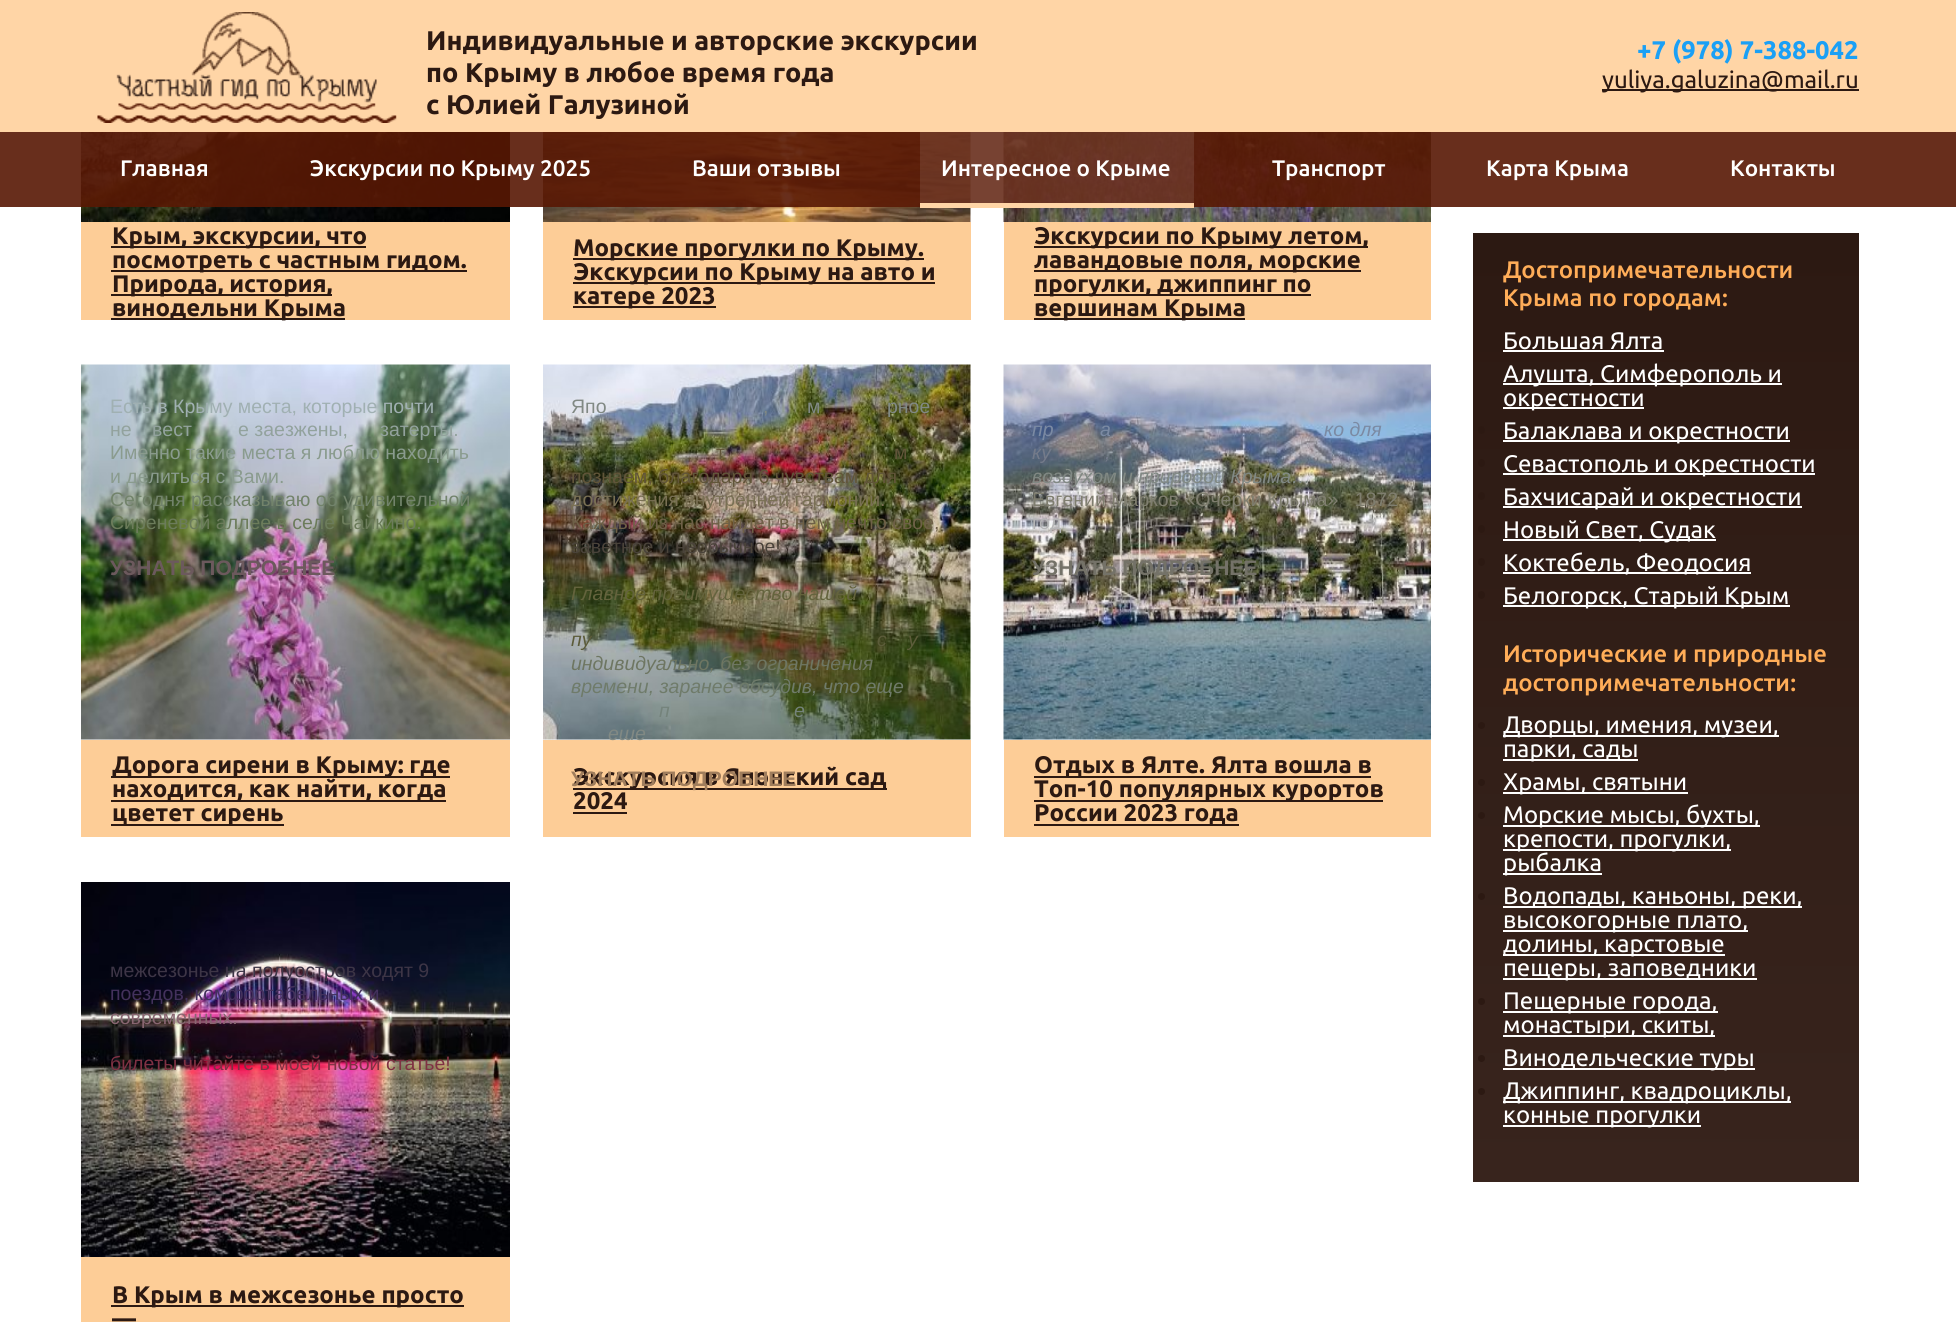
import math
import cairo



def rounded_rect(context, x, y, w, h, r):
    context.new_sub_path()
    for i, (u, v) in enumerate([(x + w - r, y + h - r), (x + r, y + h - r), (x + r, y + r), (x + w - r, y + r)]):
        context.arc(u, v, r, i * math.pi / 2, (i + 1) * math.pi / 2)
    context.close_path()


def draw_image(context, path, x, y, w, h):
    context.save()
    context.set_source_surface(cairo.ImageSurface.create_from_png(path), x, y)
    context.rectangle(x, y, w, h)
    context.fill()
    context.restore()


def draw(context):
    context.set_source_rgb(1, 1, 1)
    context.paint()
    context.set_source_rgb(1, 213 / 255, 166 / 255)
    context.rectangle(0, 0, 1956, 132)
    context.fill()
    draw_image(context, "images/1.png", 97, 12, 300, 111)
    context.set_source_rgb(44 / 255, 25 / 255, 18 / 255)
    context.rectangle(1602, 89, 257, 2)
    context.fill()
    draw_image(context, "images/2.png", 81, 132, 429, 90)
    draw_image(context, "images/3.png", 543, 132, 428, 90)
    draw_image(context, "images/4.png", 1003, 132, 428, 90)
    context.set_source_rgba(88 / 255, 24 / 255, 4 / 255, 0.9)
    context.rectangle(0, 132, 1956, 75)
    context.fill()
    context.set_source_rgba(1, 1, 1, 0.1)
    context.rectangle(920, 132, 274, 71)
    context.fill()
    context.set_source_rgb(1, 213 / 255, 166 / 255)
    context.rectangle(920, 203, 274, 5)
    context.fill()
    context.set_source_rgb(253 / 255, 205 / 255, 151 / 255)
    context.rectangle(81, 222, 429, 98)
    context.fill()
    context.set_source_rgb(44 / 255, 25 / 255, 18 / 255)
    context.rectangle(111, 246, 255, 2)
    context.fill()
    context.rectangle(111, 270, 356, 2)
    context.fill()
    context.rectangle(111, 294, 221, 2)
    context.fill()
    context.rectangle(111, 318, 234, 2)
    context.fill()
    context.set_source_rgb(253 / 255, 205 / 255, 151 / 255)
    context.rectangle(543, 222, 428, 98)
    context.fill()
    context.set_source_rgb(44 / 255, 25 / 255, 18 / 255)
    context.rectangle(573, 258, 351, 2)
    context.fill()
    context.rectangle(573, 282, 362, 2)
    context.fill()
    context.rectangle(573, 306, 143, 2)
    context.fill()
    context.set_source_rgb(253 / 255, 205 / 255, 151 / 255)
    context.rectangle(1004, 222, 427, 98)
    context.fill()
    context.set_source_rgb(44 / 255, 25 / 255, 18 / 255)
    context.rectangle(1034, 246, 334, 2)
    context.fill()
    context.rectangle(1034, 270, 327, 2)
    context.fill()
    context.rectangle(1034, 294, 277, 2)
    context.fill()
    context.rectangle(1034, 318, 211, 2)
    context.fill()
    draw_image(context, "images/5.png", 81, 364, 429, 376)
    context.set_source_rgb(253 / 255, 205 / 255, 151 / 255)
    context.rectangle(81, 740, 429, 97)
    context.fill()
    context.set_source_rgb(44 / 255, 25 / 255, 18 / 255)
    context.rectangle(111, 776, 339, 2)
    context.fill()
    context.rectangle(111, 800, 335, 2)
    context.fill()
    context.rectangle(111, 824, 173, 2)
    context.fill()
    draw_image(context, "images/6.png", 543, 364, 428, 376)
    context.set_source_rgb(253 / 255, 205 / 255, 151 / 255)
    context.rectangle(543, 740, 428, 97)
    context.fill()
    context.set_source_rgb(44 / 255, 25 / 255, 18 / 255)
    context.rectangle(573, 788, 314, 2)
    context.fill()
    context.rectangle(573, 812, 54, 2)
    context.fill()
    draw_image(context, "images/7.png", 1003, 364, 428, 376)
    context.set_source_rgb(253 / 255, 205 / 255, 151 / 255)
    context.rectangle(1004, 740, 427, 97)
    context.fill()
    context.set_source_rgb(44 / 255, 25 / 255, 18 / 255)
    context.rectangle(1034, 776, 337, 2)
    context.fill()
    context.rectangle(1034, 800, 349, 2)
    context.fill()
    context.rectangle(1034, 824, 205, 2)
    context.fill()
    draw_image(context, "images/8.png", 81, 882, 429, 375)
    context.set_source_rgb(253 / 255, 205 / 255, 151 / 255)
    context.rectangle(81, 1257, 429, 65)
    context.fill()
    context.set_source_rgb(44 / 255, 25 / 255, 18 / 255)
    context.rectangle(111, 1305, 353, 2)
    context.fill()
    gradient = cairo.LinearGradient(1666, 233, 1666, 1182)
    gradient.add_color_stop_rgba(0, 44 / 255, 25 / 255, 18 / 255, 1)
    gradient.add_color_stop_rgba(1, 56 / 255, 36 / 255, 29 / 255, 1)
    context.set_source(gradient)
    context.rectangle(1473, 233, 386, 949)
    context.fill()
    context.set_source_rgb(1, 1, 1)
    context.rectangle(1503, 350, 161, 2)
    context.fill()
    context.rectangle(1503, 383, 279, 2)
    context.fill()
    context.rectangle(1503, 407, 141, 2)
    context.fill()
    context.set_source_rgb(44 / 255, 25 / 255, 18 / 255)
    rounded_rect(context, 1478, 426, 7, 8, 3.5)
    context.fill()
    context.set_source_rgb(1, 1, 1)
    context.rectangle(1503, 440, 287, 2)
    context.fill()
    context.set_source_rgb(44 / 255, 25 / 255, 18 / 255)
    rounded_rect(context, 1478, 459, 7, 8, 3.5)
    context.fill()
    context.set_source_rgb(1, 1, 1)
    context.rectangle(1503, 473, 312, 2)
    context.fill()
    context.set_source_rgb(44 / 255, 25 / 255, 18 / 255)
    rounded_rect(context, 1478, 492, 7, 8, 3.5)
    context.fill()
    context.set_source_rgb(1, 1, 1)
    context.rectangle(1503, 506, 299, 2)
    context.fill()
    context.set_source_rgb(44 / 255, 25 / 255, 18 / 255)
    rounded_rect(context, 1478, 525, 7, 8, 3.5)
    context.fill()
    context.set_source_rgb(1, 1, 1)
    context.rectangle(1503, 539, 213, 2)
    context.fill()
    context.set_source_rgb(44 / 255, 25 / 255, 18 / 255)
    rounded_rect(context, 1478, 558, 7, 8, 3.5)
    context.fill()
    context.set_source_rgb(1, 1, 1)
    context.rectangle(1503, 572, 248, 2)
    context.fill()
    context.set_source_rgb(44 / 255, 25 / 255, 18 / 255)
    rounded_rect(context, 1478, 591, 7, 8, 3.5)
    context.fill()
    context.set_source_rgb(1, 1, 1)
    context.rectangle(1503, 605, 287, 2)
    context.fill()
    context.set_source_rgb(44 / 255, 25 / 255, 18 / 255)
    context.arc(1481.5, 725.5, 3.5, 0, 2 * math.pi)
    context.fill()
    context.set_source_rgb(1, 1, 1)
    context.rectangle(1503, 735, 276, 2)
    context.fill()
    context.rectangle(1503, 759, 135, 2)
    context.fill()
    context.set_source_rgb(44 / 255, 25 / 255, 18 / 255)
    context.arc(1481.5, 782.5, 3.5, 0, 2 * math.pi)
    context.fill()
    context.set_source_rgb(1, 1, 1)
    context.rectangle(1503, 792, 185, 2)
    context.fill()
    context.set_source_rgb(44 / 255, 25 / 255, 18 / 255)
    context.arc(1481.5, 815.5, 3.5, 0, 2 * math.pi)
    context.fill()
    context.set_source_rgb(1, 1, 1)
    context.rectangle(1503, 825, 257, 2)
    context.fill()
    context.rectangle(1503, 849, 228, 2)
    context.fill()
    context.rectangle(1503, 873, 99, 2)
    context.fill()
    context.set_source_rgb(44 / 255, 25 / 255, 18 / 255)
    context.arc(1481.5, 896.5, 3.5, 0, 2 * math.pi)
    context.fill()
    context.set_source_rgb(1, 1, 1)
    context.rectangle(1503, 906, 299, 2)
    context.fill()
    context.rectangle(1503, 930, 245, 2)
    context.fill()
    context.rectangle(1503, 954, 222, 2)
    context.fill()
    context.rectangle(1503, 978, 254, 2)
    context.fill()
    context.set_source_rgb(44 / 255, 25 / 255, 18 / 255)
    context.arc(1481.5, 1001.5, 3.5, 0, 2 * math.pi)
    context.fill()
    context.set_source_rgb(1, 1, 1)
    context.rectangle(1503, 1011, 215, 2)
    context.fill()
    context.rectangle(1503, 1035, 212, 2)
    context.fill()
    context.set_source_rgb(44 / 255, 25 / 255, 18 / 255)
    context.arc(1481.5, 1058.5, 3.5, 0, 2 * math.pi)
    context.fill()
    context.set_source_rgb(1, 1, 1)
    context.rectangle(1503, 1068, 252, 2)
    context.fill()
    context.set_source_rgb(44 / 255, 25 / 255, 18 / 255)
    context.arc(1481.5, 1091.5, 3.5, 0, 2 * math.pi)
    context.fill()
    context.set_source_rgb(1, 1, 1)
    context.rectangle(1503, 1101, 288, 2)
    context.fill()
    context.rectangle(1503, 1125, 198, 2)
    context.fill()
    context.select_font_face("Ubuntu", cairo.FontSlant.NORMAL, cairo.FontWeight.BOLD)
    context.set_font_size(27)
    context.set_source_rgb(44 / 255, 25 / 255, 18 / 255)
    context.move_to(426, 50)
    context.show_text("Индивидуальные и авторские экскурсии")
    context.move_to(426, 82)
    context.show_text("по Крыму в любое время года")
    context.move_to(426, 114)
    context.show_text("с Юлией Галузиной")
    context.set_font_size(25.5)
    context.set_source_rgb(26 / 255, 160 / 255, 246 / 255)
    context.move_to(1637, 59)
    context.show_text("+7 (978) 7-388-042")
    context.select_font_face("Ubuntu")
    context.set_font_size(24)
    context.set_source_rgb(44 / 255, 25 / 255, 18 / 255)
    context.move_to(1602, 88)
    context.show_text("yuliya.galuzina@mail.ru")
    context.select_font_face("Ubuntu Medium")
    context.set_font_size(22.5)
    context.set_source_rgb(1, 1, 1)
    context.move_to(120, 176)
    context.show_text("Главная")
    context.move_to(310, 176)
    context.show_text("Экскурсии по Крыму 2025")
    context.move_to(692, 176)
    context.show_text("Ваши отзывы")
    context.move_to(941, 176)
    context.show_text("Интересное о Крыме")
    context.move_to(1272, 176)
    context.show_text("Транспорт")
    context.move_to(1486, 176)
    context.show_text("Карта Крыма")
    context.move_to(1730, 176)
    context.show_text("Контакты")
    context.select_font_face("Ubuntu", cairo.FontSlant.NORMAL, cairo.FontWeight.BOLD)
    context.set_font_size(24)
    context.set_source_rgb(44 / 255, 25 / 255, 18 / 255)
    context.move_to(112, 244)
    context.show_text("Крым, экскурсии, что")
    context.move_to(112, 268)
    context.show_text("посмотреть с частным гидом.")
    context.move_to(112, 292)
    context.show_text("Природа, история,")
    context.move_to(112, 316)
    context.show_text("винодельни Крыма")
    context.move_to(573, 256)
    context.show_text("Морские прогулки по Крыму.")
    context.move_to(573, 280)
    context.show_text("Экскурсии по Крыму на авто и")
    context.move_to(573, 304)
    context.show_text("катере 2023")
    context.move_to(1034, 244)
    context.show_text("Экскурсии по Крыму летом,")
    context.move_to(1034, 268)
    context.show_text("лавандовые поля, морские")
    context.move_to(1034, 292)
    context.show_text("прогулки, джиппинг по")
    context.move_to(1034, 316)
    context.show_text("вершинам Крыма")
    context.select_font_face("Liberation Sans")
    context.set_font_size(19.5)
    context.set_source_rgb(160 / 255, 176 / 255, 178 / 255)
    context.move_to(110, 413)
    context.show_text("Есть в Крыму места, которые почти")
    context.set_source_rgb(146 / 255, 162 / 255, 157 / 255)
    context.move_to(110, 436)
    context.show_text("не")
    context.move_to(152, 436)
    context.show_text("вест")
    context.move_to(238, 436)
    context.show_text("е заезжены,")
    context.move_to(380, 436)
    context.show_text("затерты.")
    context.set_source_rgb(138 / 255, 155 / 255, 142 / 255)
    context.move_to(110, 459)
    context.show_text("Именно такие места я люблю находить")
    context.move_to(110, 483)
    context.show_text("и делиться с Вами.")
    context.set_source_rgb(114 / 255, 131 / 255, 107 / 255)
    context.move_to(110, 506)
    context.show_text("Сегодня рассказываю об удивительной")
    context.set_source_rgb(108 / 255, 124 / 255, 91 / 255)
    context.move_to(110, 529)
    context.show_text("Сиреневой аллее в селе Чайкино.")
    context.select_font_face("Liberation Sans", cairo.FontSlant.NORMAL, cairo.FontWeight.BOLD)
    context.set_font_size(21)
    context.set_source_rgb(108 / 255, 89 / 255, 93 / 255)
    context.move_to(110, 575)
    context.show_text("УЗНАТЬ ПОДРОБНЕЕ")
    context.select_font_face("Ubuntu", cairo.FontSlant.NORMAL, cairo.FontWeight.BOLD)
    context.set_font_size(24)
    context.set_source_rgb(44 / 255, 25 / 255, 18 / 255)
    context.move_to(112, 773)
    context.show_text("Дорога сирени в Крыму: где")
    context.move_to(112, 797)
    context.show_text("находится, как найти, когда")
    context.move_to(112, 821)
    context.show_text("цветет сирень")
    context.select_font_face("Liberation Sans")
    context.set_font_size(19.5)
    context.set_source_rgb(129 / 255, 137 / 255, 132 / 255)
    context.move_to(571, 413)
    context.show_text("Япо")
    context.move_to(763, 413)
    context.show_text(",")
    context.move_to(807, 413)
    context.show_text("м")
    context.move_to(887, 413)
    context.show_text("рное")
    context.set_source_rgb(97 / 255, 85 / 255, 57 / 255)
    context.move_to(716, 459)
    context.show_text("т")
    context.move_to(894, 459)
    context.show_text("м")
    context.move_to(571, 483)
    context.show_text("познаем, благодаря 6 чувствам для")
    context.set_source_rgb(121 / 255, 112 / 255, 84 / 255)
    context.move_to(571, 506)
    context.show_text("достижения внутренней гармонии.")
    context.set_source_rgb(110 / 255, 96 / 255, 71 / 255)
    context.move_to(571, 529)
    context.show_text("Каждый из нас найдет в нем нечто свое,")
    context.set_source_rgb(74 / 255, 67 / 255, 58 / 255)
    context.move_to(571, 553)
    context.show_text("заветное и необычное!")
    context.select_font_face("Liberation Sans", cairo.FontSlant.ITALIC)
    context.set_source_rgb(100 / 255, 99 / 255, 61 / 255)
    context.move_to(571, 600)
    context.show_text("Главное преимущество нашей")
    context.set_source_rgb(92 / 255, 92 / 255, 58 / 255)
    context.move_to(571, 646)
    context.show_text("пу")
    context.move_to(877, 646)
    context.show_text("с")
    context.move_to(908, 646)
    context.show_text("у")
    context.set_source_rgb(110 / 255, 118 / 255, 98 / 255)
    context.move_to(571, 670)
    context.show_text("индивидуально, без ограничения")
    context.set_source_rgb(111 / 255, 123 / 255, 106 / 255)
    context.move_to(571, 693)
    context.show_text("времени, заранее обсудив, что еще")
    context.set_source_rgb(116 / 255, 131 / 255, 123 / 255)
    context.move_to(659, 717)
    context.show_text("п")
    context.move_to(794, 717)
    context.show_text("е")
    context.set_source_rgb(129 / 255, 137 / 255, 132 / 255)
    context.move_to(608, 740)
    context.show_text("еше")
    context.select_font_face("Ubuntu", cairo.FontSlant.NORMAL, cairo.FontWeight.BOLD)
    context.set_font_size(24)
    context.set_source_rgb(44 / 255, 25 / 255, 18 / 255)
    context.move_to(573, 785)
    context.show_text("Экскурсия в Японский сад")
    context.select_font_face("Liberation Sans", cairo.FontSlant.NORMAL, cairo.FontWeight.BOLD)
    context.set_font_size(21)
    context.set_source_rgb(160 / 255, 125 / 255, 92 / 255)
    context.move_to(571, 786)
    context.show_text("УЗНАТЬ ПОДРОБНЕЕ")
    context.select_font_face("Ubuntu", cairo.FontSlant.NORMAL, cairo.FontWeight.BOLD)
    context.set_font_size(24)
    context.set_source_rgb(44 / 255, 25 / 255, 18 / 255)
    context.move_to(573, 809)
    context.show_text("2024")
    context.select_font_face("Liberation Sans", cairo.FontSlant.ITALIC)
    context.set_font_size(19.5)
    context.set_source_rgb(123 / 255, 138 / 255, 163 / 255)
    context.move_to(1032, 436)
    context.show_text("пр")
    context.move_to(1100, 436)
    context.show_text("а")
    context.move_to(1324, 436)
    context.show_text("ко для")
    context.set_source_rgb(116 / 255, 123 / 255, 138 / 255)
    context.move_to(1032, 459)
    context.show_text("ку")
    context.move_to(1105, 459)
    context.show_text(",")
    context.set_source_rgb(129 / 255, 137 / 255, 132 / 255)
    context.move_to(1032, 483)
    context.show_text("воздухом и природой Крыма…")
    context.select_font_face("Liberation Sans")
    context.set_source_rgb(127 / 255, 126 / 255, 111 / 255)
    context.move_to(1032, 506)
    context.show_text("Евгений Марков «Очерки Крыма»   1872")
    context.set_source_rgb(181 / 255, 181 / 255, 182 / 255)
    context.move_to(1032, 529)
    context.show_text("год")
    context.select_font_face("Liberation Sans", cairo.FontSlant.NORMAL, cairo.FontWeight.BOLD)
    context.set_font_size(21)
    context.set_source_rgb(116 / 255, 114 / 255, 104 / 255)
    context.move_to(1032, 575)
    context.show_text("УЗНАТЬ ПОДРОБНЕЕ")
    context.select_font_face("Ubuntu", cairo.FontSlant.NORMAL, cairo.FontWeight.BOLD)
    context.set_font_size(24)
    context.set_source_rgb(44 / 255, 25 / 255, 18 / 255)
    context.move_to(1034, 773)
    context.show_text("Отдых в Ялте. Ялта вошла в")
    context.move_to(1034, 797)
    context.show_text("Топ-10 популярных курортов")
    context.move_to(1034, 821)
    context.show_text("России 2023 года")
    context.select_font_face("Liberation Sans")
    context.set_font_size(19.5)
    context.set_source_rgb(61 / 255, 53 / 255, 70 / 255)
    context.move_to(110, 977)
    context.show_text("межсезонье на полуостров ходят 9")
    context.set_source_rgb(67 / 255, 49 / 255, 92 / 255)
    context.move_to(110, 1000)
    context.show_text("поездов, комфортабельных и")
    context.set_source_rgb(136 / 255, 102 / 255, 113 / 255)
    context.move_to(110, 1024)
    context.show_text("современных.")
    context.set_source_rgb(127 / 255, 49 / 255, 67 / 255)
    context.move_to(110, 1070)
    context.show_text("билеты читайте в моей новой статье!")
    context.select_font_face("Ubuntu", cairo.FontSlant.NORMAL, cairo.FontWeight.BOLD)
    context.set_font_size(24)
    context.set_source_rgb(44 / 255, 25 / 255, 18 / 255)
    context.move_to(112, 1303)
    context.show_text("В Крым в межсезонье просто")
    context.move_to(112, 1327)
    context.show_text("—")
    context.select_font_face("Ubuntu Medium")
    context.set_source_rgb(1, 173 / 255, 88 / 255)
    context.move_to(1503, 278)
    context.show_text("Достопримечательности")
    context.move_to(1503, 306)
    context.show_text("Крыма по городам:")
    context.select_font_face("Ubuntu")
    context.set_source_rgb(1, 1, 1)
    context.move_to(1503, 349)
    context.show_text("Большая Ялта")
    context.move_to(1503, 382)
    context.show_text("Алушта, Симферополь и")
    context.move_to(1503, 406)
    context.show_text("окрестности")
    context.move_to(1503, 439)
    context.show_text("Балаклава и окрестности")
    context.move_to(1503, 472)
    context.show_text("Севастополь и окрестности")
    context.move_to(1503, 505)
    context.show_text("Бахчисарай и окрестности")
    context.move_to(1503, 538)
    context.show_text("Новый Свет, Судак")
    context.move_to(1503, 571)
    context.show_text("Коктебель, Феодосия")
    context.move_to(1503, 604)
    context.show_text("Белогорск, Старый Крым")
    context.select_font_face("Ubuntu Medium")
    context.set_source_rgb(1, 173 / 255, 88 / 255)
    context.move_to(1503, 662)
    context.show_text("Исторические и природные")
    context.move_to(1503, 691)
    context.show_text("достопримечательности:")
    context.select_font_face("Ubuntu")
    context.set_source_rgb(1, 1, 1)
    context.move_to(1503, 733)
    context.show_text("Дворцы, имения, музеи,")
    context.move_to(1503, 757)
    context.show_text("парки, сады")
    context.move_to(1503, 790)
    context.show_text("Храмы, святыни")
    context.move_to(1503, 823)
    context.show_text("Морские мысы, бухты,")
    context.move_to(1503, 847)
    context.show_text("крепости, прогулки,")
    context.move_to(1503, 871)
    context.show_text("рыбалка")
    context.move_to(1503, 904)
    context.show_text("Водопады, каньоны, реки,")
    context.move_to(1503, 928)
    context.show_text("высокогорные плато,")
    context.move_to(1503, 952)
    context.show_text("долины, карстовые")
    context.move_to(1503, 976)
    context.show_text("пещеры, заповедники")
    context.move_to(1503, 1009)
    context.show_text("Пещерные города,")
    context.move_to(1503, 1033)
    context.show_text("монастыри, скиты,")
    context.move_to(1503, 1066)
    context.show_text("Винодельческие туры")
    context.move_to(1503, 1099)
    context.show_text("Джиппинг, квадроциклы,")
    context.move_to(1503, 1123)
    context.show_text("конные прогулки")


surface = cairo.ImageSurface(cairo.Format.RGB24, 1956, 1322)
context = cairo.Context(surface)
options = cairo.FontOptions()
options.set_hint_metrics(cairo.HintMetrics.OFF)
options.set_hint_style(cairo.HintStyle.NONE)
context.set_font_options(options)
context.set_miter_limit(4)
draw(context)
surface.write_to_png("out.png")
